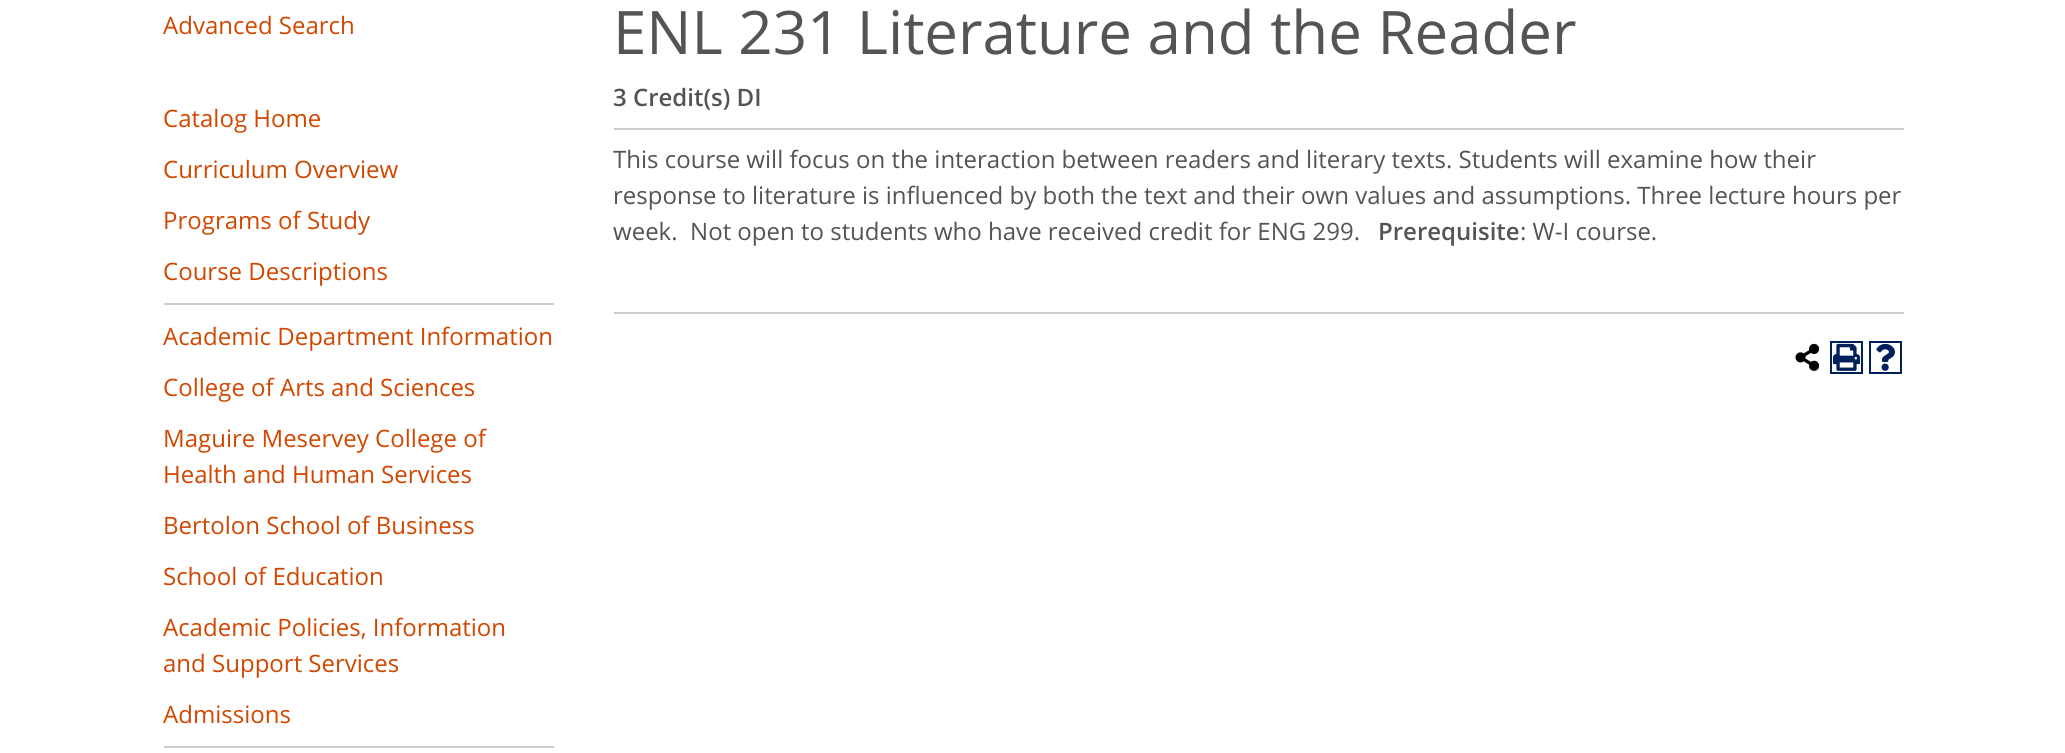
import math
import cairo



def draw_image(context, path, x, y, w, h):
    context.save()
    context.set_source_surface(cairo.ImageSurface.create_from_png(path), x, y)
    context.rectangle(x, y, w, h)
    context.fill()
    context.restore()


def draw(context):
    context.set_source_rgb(1, 1, 1)
    context.paint()
    context.set_source_rgb(204 / 255, 204 / 255, 204 / 255)
    context.rectangle(164, 303, 390, 2)
    context.fill()
    context.rectangle(164, 746, 390, 2)
    context.fill()
    context.rectangle(614, 128, 1290, 2)
    context.fill()
    context.rectangle(614, 312, 1290, 2)
    context.fill()
    draw_image(context, "images/1.png", 1795, 343, 25, 28)
    context.rectangle(1831, 342, 31, 31)
    context.set_source_rgb(0, 32 / 255, 91 / 255)
    context.stroke()
    draw_image(context, "images/2.png", 1833, 343, 27, 28)
    context.rectangle(1870, 342, 31, 31)
    context.stroke()
    draw_image(context, "images/3.png", 1876, 343, 19, 28)
    context.select_font_face("Open Sans")
    context.set_font_size(24)
    context.set_source_rgb(210 / 255, 71 / 255, 0)
    context.move_to(163, 34)
    context.show_text("Advanced Search")
    context.move_to(163, 127)
    context.show_text("Catalog Home")
    context.move_to(163, 178)
    context.show_text("Curriculum Overview")
    context.move_to(163, 229)
    context.show_text("Programs of Study")
    context.move_to(163, 280)
    context.show_text("Course Descriptions")
    context.move_to(163, 345)
    context.show_text("Academic Department Information")
    context.move_to(163, 396)
    context.show_text("College of Arts and Sciences")
    context.move_to(163, 447)
    context.show_text("Maguire Meservey College of")
    context.move_to(163, 483)
    context.show_text("Health and Human Services")
    context.move_to(163, 534)
    context.show_text("Bertolon School of Business")
    context.move_to(163, 585)
    context.show_text("School of Education")
    context.move_to(163, 636)
    context.show_text("Academic Policies, Information")
    context.move_to(163, 672)
    context.show_text("and Support Services")
    context.move_to(163, 723)
    context.show_text("Admissions")
    context.set_font_size(60)
    context.set_source_rgb(84 / 255, 84 / 255, 84 / 255)
    context.move_to(613, 54)
    context.show_text("ENL 231 Literature and the Reader")
    context.select_font_face("Open Sans SemiBold")
    context.set_font_size(24)
    context.move_to(613, 106)
    context.show_text("3 Credit(s) DI")
    context.select_font_face("Open Sans")
    context.move_to(613, 168)
    context.show_text("This course will focus on the interaction between readers and literary texts. Students will examine how their")
    context.move_to(613, 204)
    context.show_text("response to literature is influenced by both the text and their own values and assumptions. Three lecture hours per")
    context.move_to(613, 240)
    context.show_text("week.  Not open to students who have received credit for ENG 299.")
    context.select_font_face("Open Sans SemiBold")
    context.move_to(1378, 240)
    context.show_text("Prerequisite")
    context.select_font_face("Open Sans")
    context.move_to(1520, 240)
    context.show_text(": W-I course.")


surface = cairo.ImageSurface(cairo.Format.RGB24, 2065, 753)
context = cairo.Context(surface)
options = cairo.FontOptions()
options.set_hint_metrics(cairo.HintMetrics.OFF)
options.set_hint_style(cairo.HintStyle.NONE)
context.set_font_options(options)
context.set_miter_limit(4)
draw(context)
surface.write_to_png("out.png")
